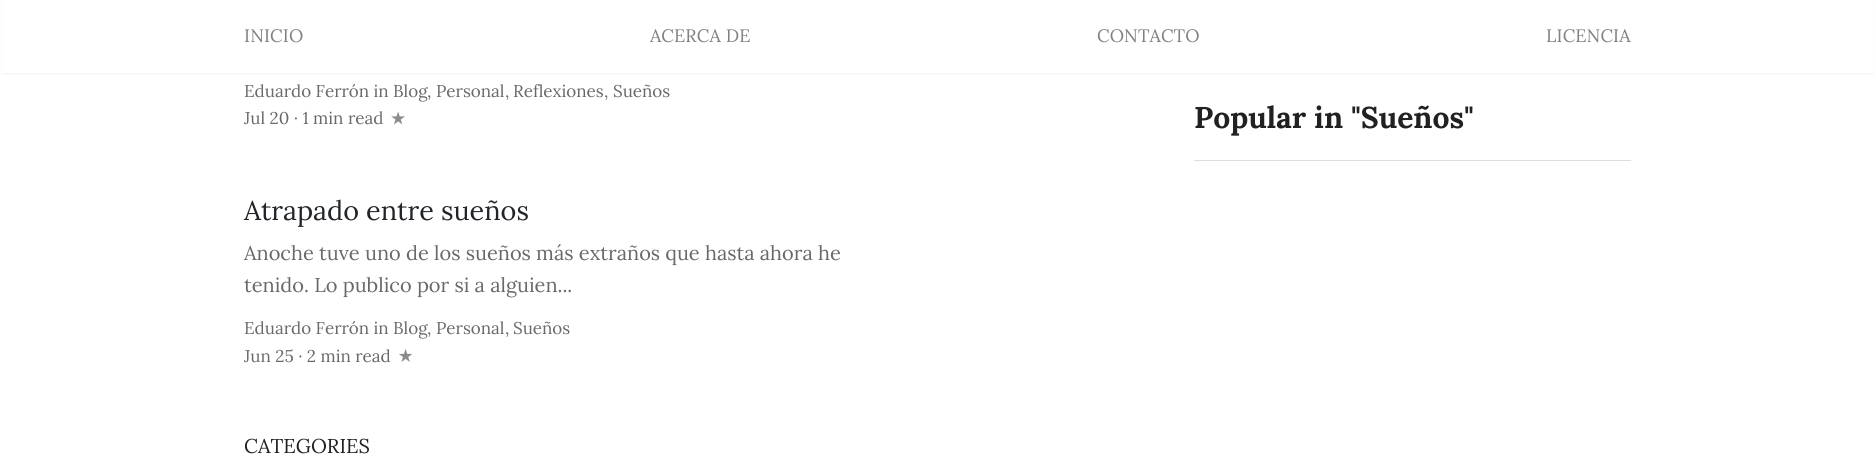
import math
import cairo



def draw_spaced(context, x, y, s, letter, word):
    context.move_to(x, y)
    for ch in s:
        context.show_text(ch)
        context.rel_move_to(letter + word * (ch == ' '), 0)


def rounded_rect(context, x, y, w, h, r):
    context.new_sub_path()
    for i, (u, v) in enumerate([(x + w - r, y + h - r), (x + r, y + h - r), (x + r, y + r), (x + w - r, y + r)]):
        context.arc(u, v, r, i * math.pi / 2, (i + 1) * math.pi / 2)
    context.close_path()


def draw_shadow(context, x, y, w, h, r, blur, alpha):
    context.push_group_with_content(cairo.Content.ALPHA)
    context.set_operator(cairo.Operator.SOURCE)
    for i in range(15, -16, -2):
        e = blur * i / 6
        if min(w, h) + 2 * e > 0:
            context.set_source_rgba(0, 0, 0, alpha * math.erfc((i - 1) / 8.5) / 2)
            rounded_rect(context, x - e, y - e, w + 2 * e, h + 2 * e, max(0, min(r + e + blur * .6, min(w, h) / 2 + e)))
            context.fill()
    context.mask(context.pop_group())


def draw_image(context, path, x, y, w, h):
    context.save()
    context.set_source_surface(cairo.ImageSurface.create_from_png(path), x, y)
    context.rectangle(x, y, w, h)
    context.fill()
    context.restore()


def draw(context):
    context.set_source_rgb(1, 1, 1)
    context.paint()
    context.set_source_rgb(0, 0, 0)
    draw_shadow(context, 3, -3, 1870, 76, 0, 1, 0.13)
    context.set_source_rgb(1, 1, 1)
    context.rectangle(2, 0, 1872, 73)
    context.fill()
    draw_image(context, "images/1.png", 391, 111, 14, 14)
    draw_image(context, "images/2.png", 399, 349, 14, 13)
    context.set_source_rgb(222 / 255, 222 / 255, 222 / 255)
    context.rectangle(1194, 160, 437, 1)
    context.fill()
    context.select_font_face("Lora")
    context.set_font_size(18)
    context.set_source_rgb(128 / 255, 128 / 255, 128 / 255)
    draw_spaced(context, 244, 42, "INICIO", 0.1, 0)
    draw_spaced(context, 650, 42, "ACERCA DE", 0.1, 0)
    draw_spaced(context, 1097, 42, "CONTACTO", 0.1, 0)
    draw_spaced(context, 1546, 42, "LICENCIA", 0.1, 0)
    context.set_font_size(17)
    context.set_source_rgb(105 / 255, 105 / 255, 105 / 255)
    context.move_to(244, 97)
    context.show_text("Eduardo Ferrón in")
    context.move_to(393, 97)
    context.show_text("Blog")
    context.move_to(427, 97)
    context.show_text(",")
    context.move_to(436, 97)
    context.show_text("Personal")
    context.move_to(505, 97)
    context.show_text(",")
    context.move_to(513, 97)
    context.show_text("Reflexiones")
    context.move_to(604, 97)
    context.show_text(",")
    context.move_to(613, 97)
    context.show_text("Sueños")
    context.move_to(244, 124)
    context.show_text("Jul 20 · 1 min read")
    context.set_font_size(27)
    context.set_source_rgb(33 / 255, 37 / 255, 41 / 255)
    context.move_to(244, 220)
    context.show_text("Atrapado entre sueños")
    context.set_font_size(20)
    context.set_source_rgb(105 / 255, 105 / 255, 105 / 255)
    context.move_to(244, 260)
    context.show_text("Anoche tuve uno de los sueños más extraños que hasta ahora he")
    context.move_to(244, 292)
    context.show_text("tenido. Lo publico por si a alguien...")
    context.set_font_size(17)
    context.move_to(244, 334)
    context.show_text("Eduardo Ferrón in")
    context.move_to(393, 334)
    context.show_text("Blog")
    context.move_to(427, 334)
    context.show_text(",")
    context.move_to(436, 334)
    context.show_text("Personal")
    context.move_to(505, 334)
    context.show_text(",")
    context.move_to(513, 334)
    context.show_text("Sueños")
    context.move_to(244, 362)
    context.show_text("Jun 25 · 2 min read")
    context.set_font_size(20)
    context.set_source_rgb(33 / 255, 33 / 255, 33 / 255)
    context.move_to(244, 453)
    context.show_text("CATEGORIES")
    context.select_font_face("Lora", cairo.FontSlant.NORMAL, cairo.FontWeight.BOLD)
    context.set_font_size(30)
    context.move_to(1194, 128)
    context.show_text("Popular in \"Sueños\"")


surface = cairo.ImageSurface(cairo.Format.RGB24, 1875, 457)
context = cairo.Context(surface)
options = cairo.FontOptions()
options.set_hint_metrics(cairo.HintMetrics.OFF)
options.set_hint_style(cairo.HintStyle.NONE)
context.set_font_options(options)
context.set_miter_limit(4)
draw(context)
surface.write_to_png("out.png")
